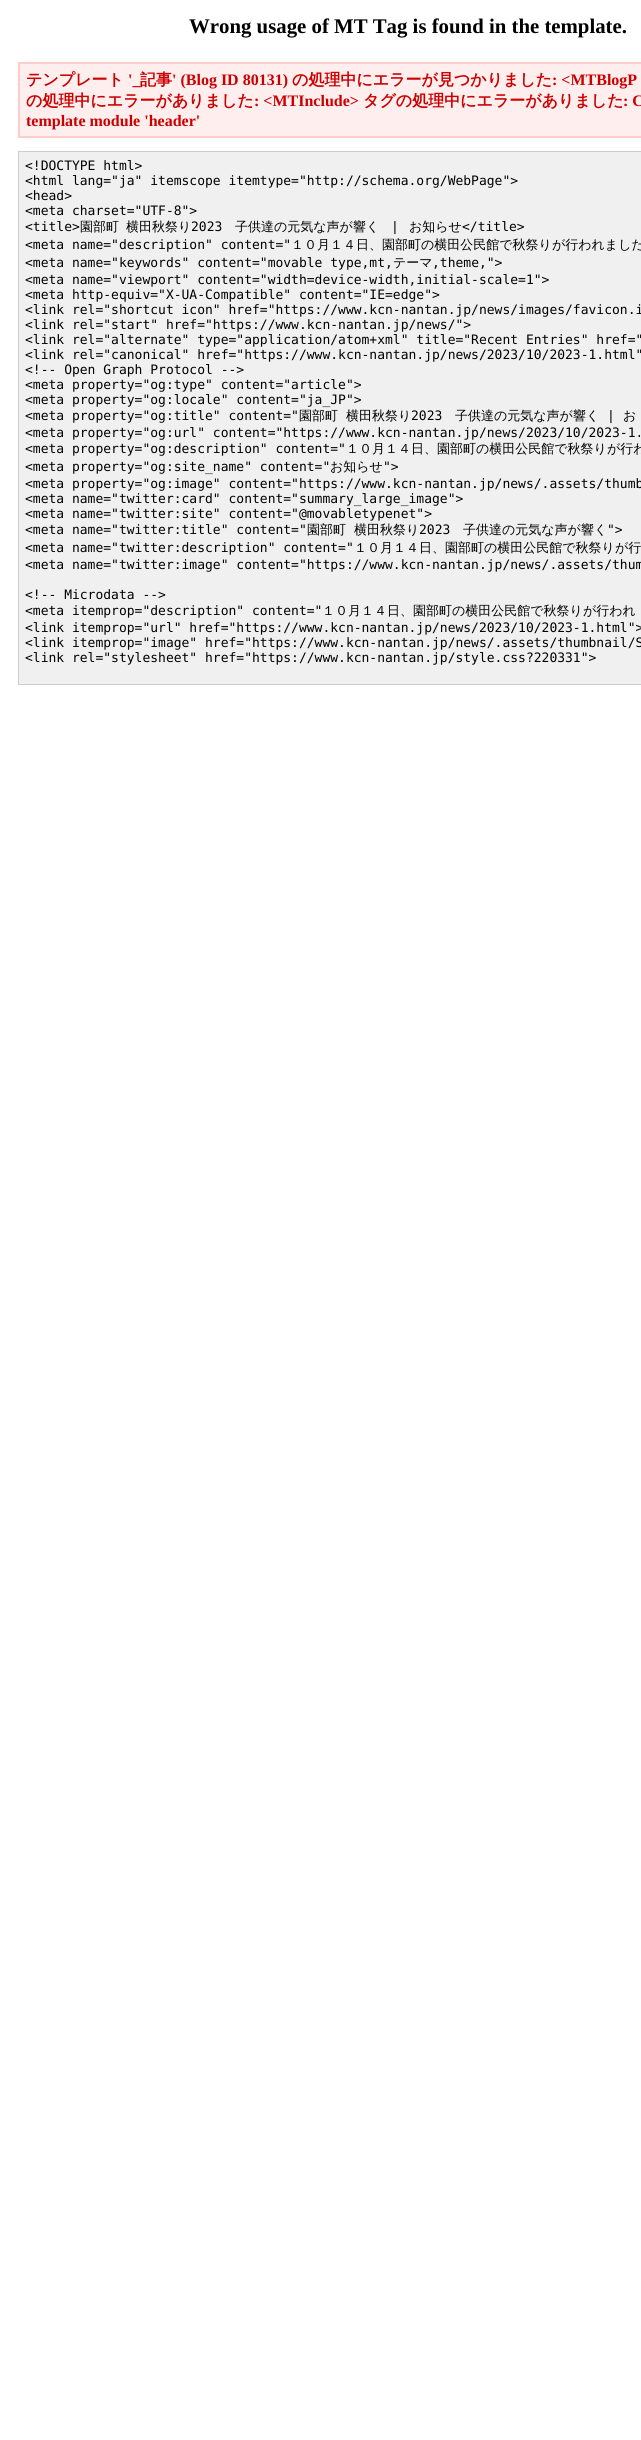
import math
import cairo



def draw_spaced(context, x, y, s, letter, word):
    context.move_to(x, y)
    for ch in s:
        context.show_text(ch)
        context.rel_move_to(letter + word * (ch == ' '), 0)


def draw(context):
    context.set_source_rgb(1, 1, 1)
    context.paint()
    context.set_source_rgb(1, 238 / 255, 238 / 255)
    context.rectangle(19, 63, 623, 74)
    context.fill_preserve()
    context.set_source_rgb(1, 204 / 255, 204 / 255)
    context.stroke()
    context.set_source_rgb(240 / 255, 240 / 255, 240 / 255)
    context.rectangle(18.5, 151.5, 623, 533)
    context.fill_preserve()
    context.set_source_rgb(204 / 255, 204 / 255, 204 / 255)
    context.set_line_width(1)
    context.stroke()
    context.select_font_face("Liberation Serif", cairo.FontSlant.NORMAL, cairo.FontWeight.BOLD)
    context.set_font_size(20.8)
    context.set_source_rgb(0, 0, 0)
    context.move_to(189, 33)
    context.show_text("Wrong usage of MT Tag is found in the template.")
    context.select_font_face("WenQuanYi Zen Hei", cairo.FontSlant.NORMAL, cairo.FontWeight.BOLD)
    context.set_font_size(16)
    context.set_source_rgb(204 / 255, 0, 0)
    context.move_to(26, 85)
    context.show_text("テンプレート")
    context.select_font_face("Liberation Serif", cairo.FontSlant.NORMAL, cairo.FontWeight.BOLD)
    context.move_to(128, 85)
    context.show_text("'_")
    context.select_font_face("WenQuanYi Zen Hei", cairo.FontSlant.NORMAL, cairo.FontWeight.BOLD)
    context.move_to(140, 85)
    context.show_text("記事")
    context.select_font_face("Liberation Serif", cairo.FontSlant.NORMAL, cairo.FontWeight.BOLD)
    context.move_to(172, 85)
    context.show_text("' (Blog ID 80131)")
    context.select_font_face("WenQuanYi Zen Hei", cairo.FontSlant.NORMAL, cairo.FontWeight.BOLD)
    context.move_to(292, 85)
    context.show_text("の処理中にエラーが見つかりました")
    context.select_font_face("Liberation Serif", cairo.FontSlant.NORMAL, cairo.FontWeight.BOLD)
    context.move_to(552, 85)
    context.show_text(": <MTBlogP")
    context.select_font_face("WenQuanYi Zen Hei", cairo.FontSlant.NORMAL, cairo.FontWeight.BOLD)
    context.move_to(26, 106)
    context.show_text("の処理中にエラーがありました")
    context.select_font_face("Liberation Serif", cairo.FontSlant.NORMAL, cairo.FontWeight.BOLD)
    context.move_to(254, 106)
    context.show_text(": <MTInclude>")
    context.select_font_face("WenQuanYi Zen Hei", cairo.FontSlant.NORMAL, cairo.FontWeight.BOLD)
    context.move_to(363, 106)
    context.show_text("タグの処理中にエラーがありました")
    context.select_font_face("Liberation Serif", cairo.FontSlant.NORMAL, cairo.FontWeight.BOLD)
    context.move_to(623, 106)
    context.show_text(": C")
    context.move_to(26, 126)
    context.show_text("template module 'header'")
    context.select_font_face("DejaVu Sans Mono")
    context.set_font_size(13)
    context.set_source_rgb(0, 0, 0)
    context.move_to(25, 170)
    context.show_text("<!DOCTYPE html>")
    context.move_to(25, 185)
    context.show_text("<html lang=\"ja\" itemscope itemtype=\"http://schema.org/WebPage\">")
    context.move_to(25, 200)
    context.show_text("<head>")
    context.move_to(25, 215)
    context.show_text("<meta charset=\"UTF-8\">")
    context.move_to(25, 231)
    context.show_text("<title>")
    context.select_font_face("WenQuanYi Zen Hei Medium")
    draw_spaced(context, 80, 231, "園部町 横田秋祭り", 0, 3)
    context.select_font_face("DejaVu Sans Mono")
    context.move_to(191, 231)
    context.show_text("2023")
    context.select_font_face("WenQuanYi Zen Hei Medium")
    context.move_to(235, 231)
    context.show_text("子供達の元気な声が響く")
    context.select_font_face("DejaVu Sans Mono")
    context.move_to(391, 231)
    context.show_text("|")
    context.select_font_face("WenQuanYi Zen Hei Medium")
    context.move_to(409, 231)
    context.show_text("お知らせ")
    context.select_font_face("DejaVu Sans Mono")
    context.move_to(462, 231)
    context.show_text("</title>")
    context.move_to(25, 249)
    context.show_text("<meta name=\"description\" content=\"")
    context.select_font_face("WenQuanYi Zen Hei Medium")
    context.move_to(291, 249)
    context.show_text("１０月１４日、園部町の横田公民館で秋祭りが行われました")
    context.select_font_face("DejaVu Sans Mono")
    context.move_to(25, 267)
    context.show_text("<meta name=\"keywords\" content=\"movable type,mt,")
    context.select_font_face("WenQuanYi Zen Hei Medium")
    context.move_to(393, 267)
    context.show_text("テーマ")
    context.select_font_face("DejaVu Sans Mono")
    context.move_to(432, 267)
    context.show_text(",theme,\">")
    context.move_to(25, 284)
    context.show_text("<meta name=\"viewport\" content=\"width=device-width,initial-scale=1\">")
    context.move_to(25, 299)
    context.show_text("<meta http-equiv=\"X-UA-Compatible\" content=\"IE=edge\">")
    context.move_to(25, 314)
    context.show_text("<link rel=\"shortcut icon\" href=\"https://www.kcn-nantan.jp/news/images/favicon.i")
    context.move_to(25, 329)
    context.show_text("<link rel=\"start\" href=\"https://www.kcn-nantan.jp/news/\">")
    context.move_to(25, 344)
    context.show_text("<link rel=\"alternate\" type=\"application/atom+xml\" title=\"Recent Entries\" href=\"")
    context.move_to(25, 359)
    context.show_text("<link rel=\"canonical\" href=\"https://www.kcn-nantan.jp/news/2023/10/2023-1.html\"")
    context.move_to(25, 374)
    context.show_text("<!-- Open Graph Protocol -->")
    context.move_to(25, 389)
    context.show_text("<meta property=\"og:type\" content=\"article\">")
    context.move_to(25, 404)
    context.show_text("<meta property=\"og:locale\" content=\"ja_JP\">")
    context.move_to(25, 420)
    context.show_text("<meta property=\"og:title\" content=\"")
    context.select_font_face("WenQuanYi Zen Hei Medium")
    context.move_to(299, 420)
    context.show_text("園部町")
    context.move_to(346, 420)
    context.show_text("横田秋祭り")
    context.select_font_face("DejaVu Sans Mono")
    context.move_to(411, 420)
    context.show_text("2023")
    context.select_font_face("WenQuanYi Zen Hei Medium")
    context.move_to(455, 420)
    context.show_text("子供達の元気な声が響く")
    context.select_font_face("DejaVu Sans Mono")
    context.move_to(607, 420)
    context.show_text("|")
    context.select_font_face("WenQuanYi Zen Hei Medium")
    context.move_to(623, 420)
    context.show_text("お")
    context.select_font_face("DejaVu Sans Mono")
    context.move_to(25, 437)
    context.show_text("<meta property=\"og:url\" content=\"https://www.kcn-nantan.jp/news/2023/10/2023-1.")
    context.move_to(25, 453)
    context.show_text("<meta property=\"og:description\" content=\"")
    context.select_font_face("WenQuanYi Zen Hei Medium")
    context.move_to(346, 453)
    context.show_text("１０月１４日、園部町の横田公民館で秋祭りが行わ")
    context.select_font_face("DejaVu Sans Mono")
    context.move_to(25, 471)
    context.show_text("<meta property=\"og:site_name\" content=\"")
    context.select_font_face("WenQuanYi Zen Hei Medium")
    context.move_to(330, 471)
    context.show_text("お知らせ")
    context.select_font_face("DejaVu Sans Mono")
    context.move_to(383, 471)
    context.show_text("\">")
    context.move_to(25, 488)
    context.show_text("<meta property=\"og:image\" content=\"https://www.kcn-nantan.jp/news/.assets/thumb")
    context.move_to(25, 503)
    context.show_text("<meta name=\"twitter:card\" content=\"summary_large_image\">")
    context.move_to(25, 518)
    context.show_text("<meta name=\"twitter:site\" content=\"@movabletypenet\">")
    context.move_to(25, 534)
    context.show_text("<meta name=\"twitter:title\" content=\"")
    context.select_font_face("WenQuanYi Zen Hei Medium")
    context.move_to(307, 534)
    context.show_text("園部町")
    context.move_to(354, 534)
    context.show_text("横田秋祭り")
    context.select_font_face("DejaVu Sans Mono")
    context.move_to(419, 534)
    context.show_text("2023")
    context.select_font_face("WenQuanYi Zen Hei Medium")
    context.move_to(463, 534)
    context.show_text("子供達の元気な声が響く")
    context.select_font_face("DejaVu Sans Mono")
    context.move_to(607, 534)
    context.show_text("\">")
    context.move_to(25, 552)
    context.show_text("<meta name=\"twitter:description\" content=\"")
    context.select_font_face("WenQuanYi Zen Hei Medium")
    context.move_to(354, 552)
    context.show_text("１０月１４日、園部町の横田公民館で秋祭りが行")
    context.select_font_face("DejaVu Sans Mono")
    context.move_to(25, 569)
    context.show_text("<meta name=\"twitter:image\" content=\"https://www.kcn-nantan.jp/news/.assets/thum")
    context.move_to(25, 599)
    context.show_text("<!-- Microdata -->")
    context.move_to(25, 615)
    context.show_text("<meta itemprop=\"description\" content=\"")
    context.select_font_face("WenQuanYi Zen Hei Medium")
    context.move_to(322, 615)
    context.show_text("１０月１４日、園部町の横田公民館で秋祭りが行われ")
    context.select_font_face("DejaVu Sans Mono")
    context.move_to(25, 632)
    context.show_text("<link itemprop=\"url\" href=\"https://www.kcn-nantan.jp/news/2023/10/2023-1.html\">")
    context.move_to(25, 647)
    context.show_text("<link itemprop=\"image\" href=\"https://www.kcn-nantan.jp/news/.assets/thumbnail/S")
    context.move_to(25, 662)
    context.show_text("<link rel=\"stylesheet\" href=\"https://www.kcn-nantan.jp/style.css?220331\">")


surface = cairo.ImageSurface(cairo.Format.RGB24, 641, 2440)
context = cairo.Context(surface)
options = cairo.FontOptions()
options.set_hint_metrics(cairo.HintMetrics.OFF)
options.set_hint_style(cairo.HintStyle.NONE)
context.set_font_options(options)
context.set_miter_limit(4)
draw(context)
surface.write_to_png("out.png")
